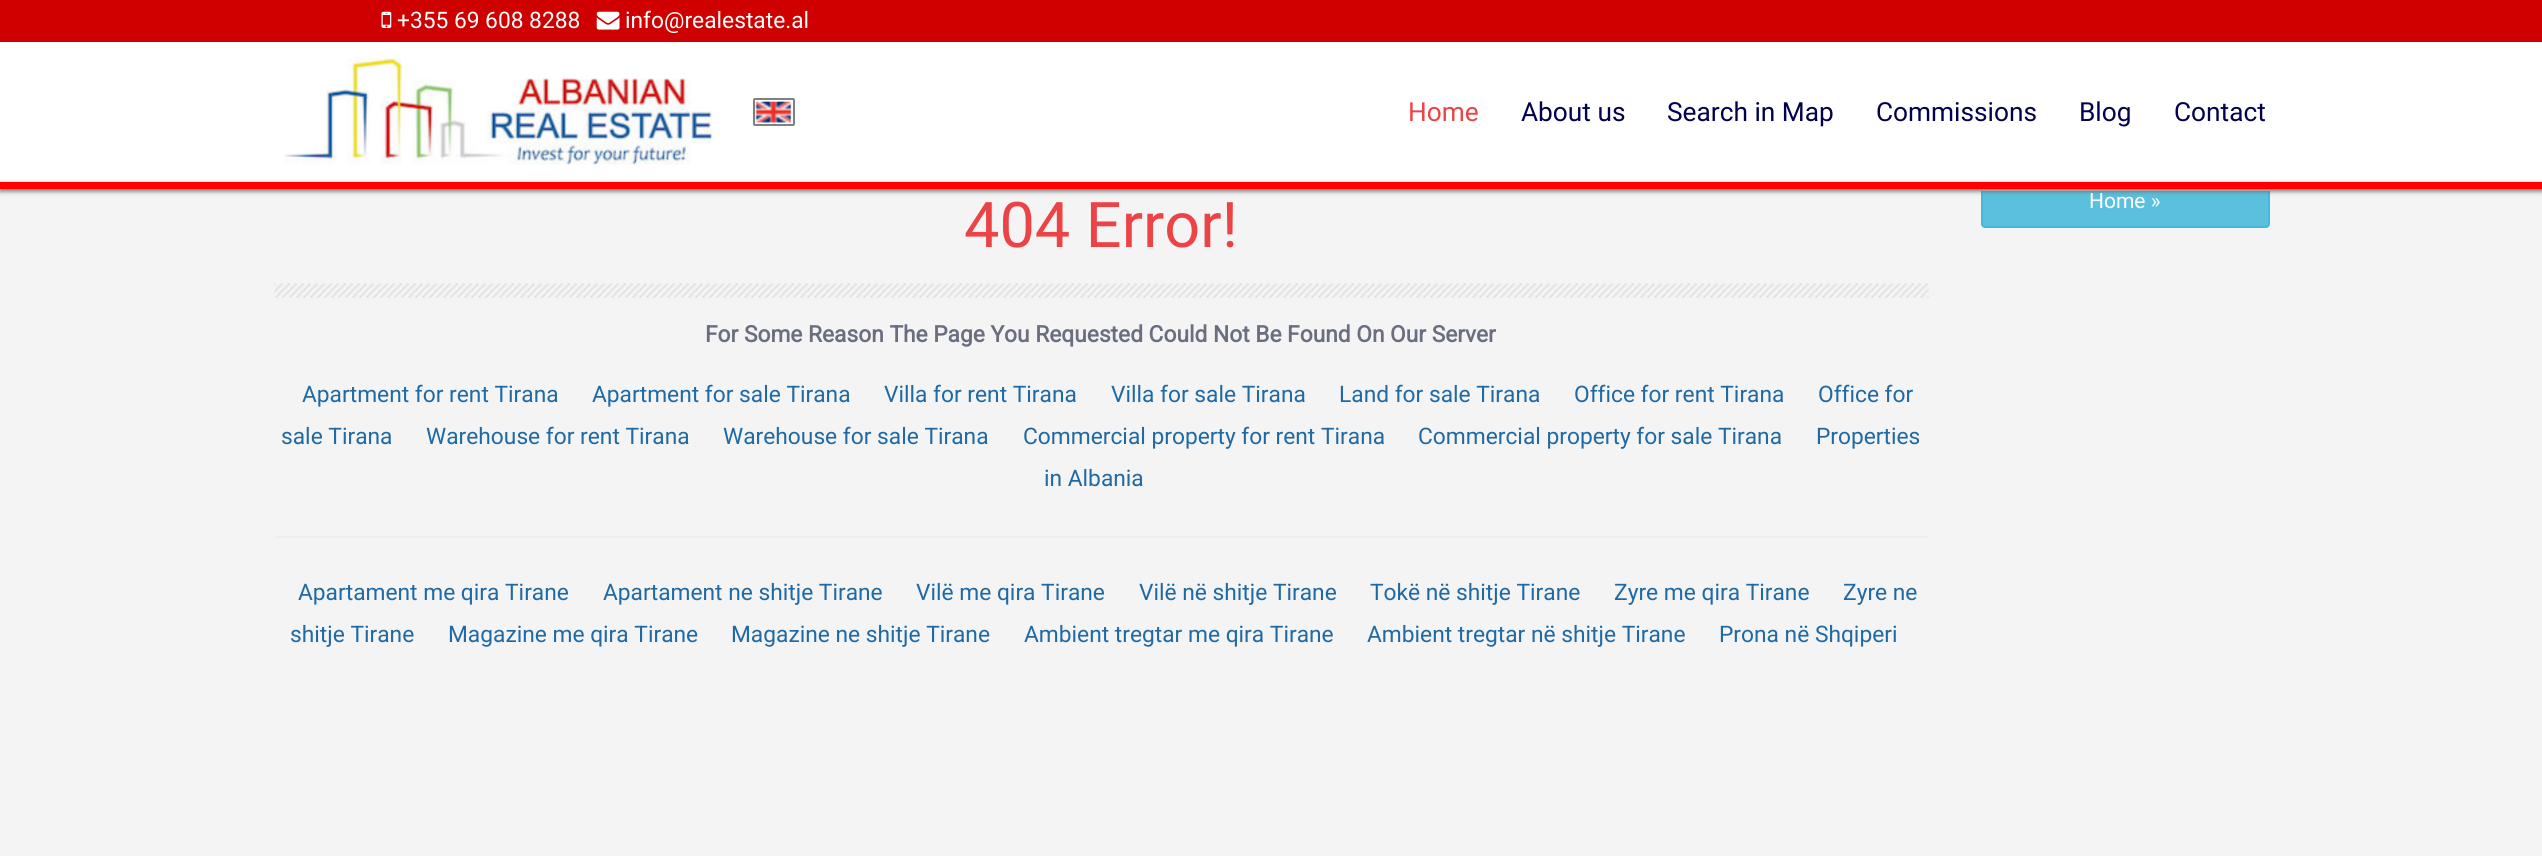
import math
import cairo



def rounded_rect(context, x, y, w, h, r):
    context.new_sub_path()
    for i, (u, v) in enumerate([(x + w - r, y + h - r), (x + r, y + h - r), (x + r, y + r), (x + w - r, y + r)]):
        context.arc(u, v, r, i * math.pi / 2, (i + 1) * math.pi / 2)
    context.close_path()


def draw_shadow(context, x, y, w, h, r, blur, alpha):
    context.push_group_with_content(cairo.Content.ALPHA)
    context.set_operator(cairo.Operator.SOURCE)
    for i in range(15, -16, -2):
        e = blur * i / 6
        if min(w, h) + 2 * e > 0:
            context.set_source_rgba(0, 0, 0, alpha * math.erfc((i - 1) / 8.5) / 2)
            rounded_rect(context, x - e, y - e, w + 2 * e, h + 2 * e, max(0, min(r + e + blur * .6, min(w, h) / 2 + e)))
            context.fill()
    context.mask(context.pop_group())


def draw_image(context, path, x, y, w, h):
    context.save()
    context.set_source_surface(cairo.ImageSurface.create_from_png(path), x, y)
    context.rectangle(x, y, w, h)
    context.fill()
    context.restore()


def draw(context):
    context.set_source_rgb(244 / 255, 244 / 255, 244 / 255)
    context.paint()
    context.set_source_rgb(91 / 255, 192 / 255, 222 / 255)
    rounded_rect(context, 1982, 176, 287, 51, 3)
    context.fill_preserve()
    context.set_source_rgb(70 / 255, 184 / 255, 218 / 255)
    context.stroke()
    context.set_source_rgb(1, 1, 1)
    context.rectangle(0, 42, 2542, 140)
    context.fill()
    context.rectangle(0, 189, 2542, 2)
    context.fill()
    context.set_source_rgb(206 / 255, 0, 0)
    context.rectangle(0, 0, 2542, 42)
    context.fill()
    draw_image(context, "images/1.png", 381, 11, 11, 17)
    draw_image(context, "images/2.png", 596, 11, 24, 19)
    draw_image(context, "images/3.png", 284, 58, 429, 107)
    rounded_rect(context, 754, 99, 40, 26, 1)
    context.set_source_rgb(128 / 255, 128 / 255, 128 / 255)
    context.stroke()
    draw_image(context, "images/4.png", 755, 101, 37, 22)
    context.set_source_rgb(99 / 255, 99 / 255, 99 / 255)
    draw_shadow(context, 0, 184, 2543, 7, 0, 2.5, 1)
    context.set_source_rgb(1, 0, 0)
    context.rectangle(0, 182, 2542, 7)
    context.fill()
    draw_image(context, "images/5.png", 274, 283, 1655, 15)
    context.set_source_rgb(238 / 255, 238 / 255, 238 / 255)
    context.rectangle(275, 536, 1654, 2)
    context.fill()
    context.select_font_face("Roboto")
    context.set_font_size(22.75)
    context.set_source_rgb(1, 1, 1)
    context.move_to(397, 28)
    context.show_text("+355 69 608 8288")
    context.move_to(625, 28)
    context.show_text("info@realestate.al")
    context.set_font_size(26.25)
    context.set_source_rgb(236 / 255, 68 / 255, 70 / 255)
    context.move_to(1408, 121)
    context.show_text("Home")
    context.set_source_rgb(2 / 255, 1 / 255, 80 / 255)
    context.move_to(1521, 121)
    context.show_text("About us")
    context.move_to(1667, 121)
    context.show_text("Search in Map")
    context.move_to(1876, 121)
    context.show_text("Commissions")
    context.move_to(2079, 121)
    context.show_text("Blog")
    context.move_to(2174, 121)
    context.show_text("Contact")
    context.set_font_size(63)
    context.set_source_rgb(236 / 255, 68 / 255, 70 / 255)
    context.move_to(964, 247)
    context.show_text("404 Error!")
    context.select_font_face("Roboto", cairo.FontSlant.NORMAL, cairo.FontWeight.BOLD)
    context.set_font_size(22.75)
    context.set_source_rgb(107 / 255, 110 / 255, 128 / 255)
    context.move_to(705, 342)
    context.show_text("For Some Reason The Page You Requested Could Not Be Found On Our Server")
    context.select_font_face("Roboto")
    context.set_source_rgb(31 / 255, 105 / 255, 164 / 255)
    context.move_to(302, 402)
    context.show_text("Apartment for rent Tirana")
    context.move_to(592, 402)
    context.show_text("Apartment for sale Tirana")
    context.move_to(884, 402)
    context.show_text("Villa for rent Tirana")
    context.move_to(1111, 402)
    context.show_text("Villa for sale Tirana")
    context.move_to(1339, 402)
    context.show_text("Land for sale Tirana")
    context.move_to(1574, 402)
    context.show_text("Office for rent Tirana")
    context.move_to(1818, 402)
    context.show_text("Office for")
    context.move_to(281, 444)
    context.show_text("sale Tirana")
    context.move_to(426, 444)
    context.show_text("Warehouse for rent Tirana")
    context.move_to(723, 444)
    context.show_text("Warehouse for sale Tirana")
    context.move_to(1023, 444)
    context.show_text("Commercial property for rent Tirana")
    context.move_to(1418, 444)
    context.show_text("Commercial property for sale Tirana")
    context.move_to(1816, 444)
    context.show_text("Properties")
    context.move_to(1044, 486)
    context.show_text("in Albania")
    context.move_to(298, 600)
    context.show_text("Apartament me qira Tirane")
    context.move_to(603, 600)
    context.show_text("Apartament ne shitje Tirane")
    context.move_to(916, 600)
    context.show_text("Vilë me qira Tirane")
    context.move_to(1139, 600)
    context.show_text("Vilë në shitje Tirane")
    context.move_to(1370, 600)
    context.show_text("Tokë në shitje Tirane")
    context.move_to(1614, 600)
    context.show_text("Zyre me qira Tirane")
    context.move_to(1843, 600)
    context.show_text("Zyre ne")
    context.move_to(290, 642)
    context.show_text("shitje Tirane")
    context.move_to(448, 642)
    context.show_text("Magazine me qira Tirane")
    context.move_to(731, 642)
    context.show_text("Magazine ne shitje Tirane")
    context.move_to(1024, 642)
    context.show_text("Ambient tregtar me qira Tirane")
    context.move_to(1367, 642)
    context.show_text("Ambient tregtar në shitje Tirane")
    context.move_to(1719, 642)
    context.show_text("Prona në Shqiperi")
    context.set_font_size(21)
    context.set_source_rgb(1, 1, 1)
    context.move_to(2089, 208)
    context.show_text("Home »")


surface = cairo.ImageSurface(cairo.Format.RGB24, 2542, 856)
context = cairo.Context(surface)
options = cairo.FontOptions()
options.set_hint_metrics(cairo.HintMetrics.OFF)
options.set_hint_style(cairo.HintStyle.NONE)
context.set_font_options(options)
context.set_miter_limit(4)
draw(context)
surface.write_to_png("out.png")
